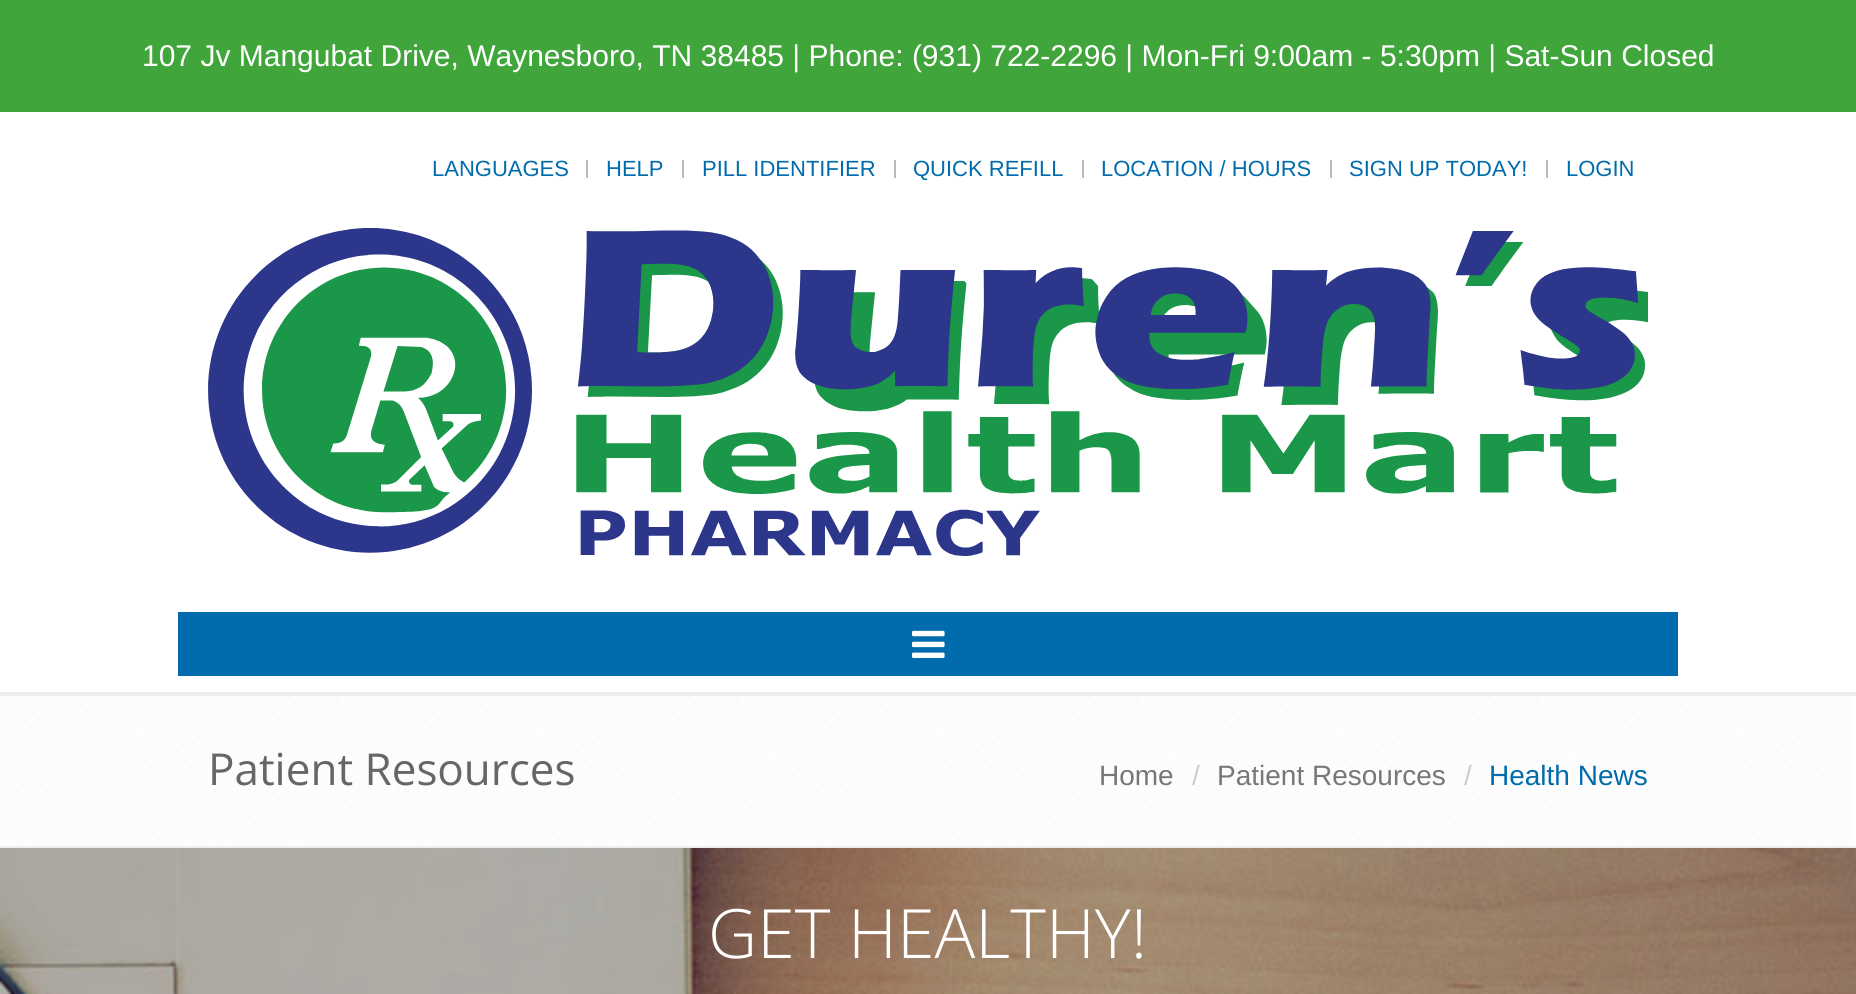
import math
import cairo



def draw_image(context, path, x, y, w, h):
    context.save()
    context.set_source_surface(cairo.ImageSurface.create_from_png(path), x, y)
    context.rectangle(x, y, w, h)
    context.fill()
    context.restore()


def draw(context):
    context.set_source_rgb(1, 1, 1)
    context.paint()
    context.set_source_rgb(64 / 255, 165 / 255, 58 / 255)
    context.rectangle(0, 0, 1856, 112)
    context.fill()
    context.set_source_rgb(238 / 255, 238 / 255, 238 / 255)
    context.rectangle(0, 692, 1856, 4)
    context.fill()
    context.set_source_rgb(187 / 255, 187 / 255, 187 / 255)
    context.rectangle(586, 160, 2, 18)
    context.fill()
    context.rectangle(682, 160, 2, 18)
    context.fill()
    context.rectangle(894, 160, 2, 18)
    context.fill()
    context.rectangle(1082, 160, 2, 18)
    context.fill()
    context.rectangle(1330, 160, 2, 18)
    context.fill()
    context.rectangle(1546, 160, 2, 18)
    context.fill()
    draw_image(context, "images/1.png", 208, 228, 1440, 328)
    context.set_source_rgb(0, 107 / 255, 173 / 255)
    context.rectangle(178, 612, 1500, 64)
    context.fill()
    draw_image(context, "images/2.png", 912, 630, 33, 28)
    draw_image(context, "images/3.png", 0, 696, 1851, 150)
    context.set_source_rgb(238 / 255, 238 / 255, 238 / 255)
    context.rectangle(0, 846, 1856, 2)
    context.fill()
    draw_image(context, "images/4.png", 0, 848, 1856, 146)
    context.select_font_face("Liberation Sans")
    context.set_font_size(30)
    context.set_source_rgb(1, 1, 1)
    context.move_to(142, 66)
    context.show_text("107 Jv Mangubat Drive, Waynesboro, TN 38485 | Phone: (931) 722-2296 | Mon-Fri 9:00am - 5:30pm | Sat-Sun Closed")
    context.set_font_size(22)
    context.set_source_rgb(0, 107 / 255, 173 / 255)
    context.move_to(432, 176)
    context.show_text("LANGUAGES")
    context.move_to(606, 176)
    context.show_text("HELP")
    context.move_to(702, 176)
    context.show_text("PILL IDENTIFIER")
    context.move_to(913, 176)
    context.show_text("QUICK REFILL")
    context.move_to(1101, 176)
    context.show_text("LOCATION / HOURS")
    context.move_to(1349, 176)
    context.show_text("SIGN UP TODAY!")
    context.move_to(1566, 176)
    context.show_text("LOGIN")
    context.select_font_face("Open Sans")
    context.set_font_size(44)
    context.set_source_rgb(102 / 255, 102 / 255, 102 / 255)
    context.move_to(208, 785)
    context.show_text("Patient Resources")
    context.select_font_face("Liberation Sans")
    context.set_font_size(28)
    context.set_source_rgb(119 / 255, 119 / 255, 119 / 255)
    context.move_to(1099, 785)
    context.show_text("Home")
    context.set_source_rgb(204 / 255, 204 / 255, 204 / 255)
    context.move_to(1192, 785)
    context.show_text("/")
    context.set_source_rgb(119 / 255, 119 / 255, 119 / 255)
    context.move_to(1217, 785)
    context.show_text("Patient Resources")
    context.set_source_rgb(204 / 255, 204 / 255, 204 / 255)
    context.move_to(1464, 785)
    context.show_text("/")
    context.set_source_rgb(0, 107 / 255, 173 / 255)
    context.move_to(1489, 785)
    context.show_text("Health News")
    context.select_font_face("Open Sans Light")
    context.set_font_size(68)
    context.set_source_rgb(1, 1, 1)
    context.move_to(708, 958)
    context.show_text("GET HEALTHY!")


surface = cairo.ImageSurface(cairo.Format.RGB24, 1856, 994)
context = cairo.Context(surface)
options = cairo.FontOptions()
options.set_hint_metrics(cairo.HintMetrics.OFF)
options.set_hint_style(cairo.HintStyle.NONE)
context.set_font_options(options)
context.set_miter_limit(4)
draw(context)
surface.write_to_png("out.png")
